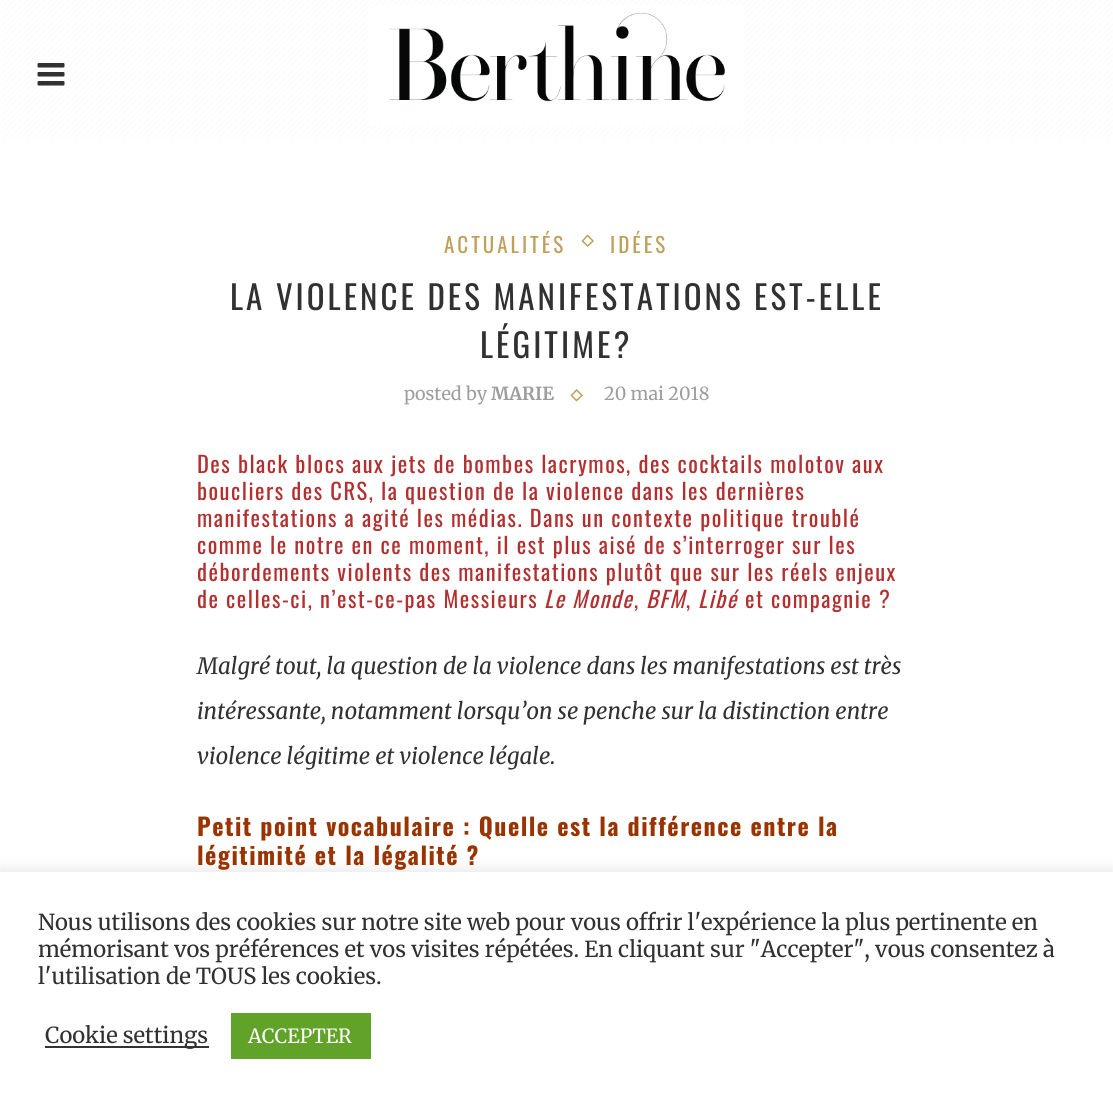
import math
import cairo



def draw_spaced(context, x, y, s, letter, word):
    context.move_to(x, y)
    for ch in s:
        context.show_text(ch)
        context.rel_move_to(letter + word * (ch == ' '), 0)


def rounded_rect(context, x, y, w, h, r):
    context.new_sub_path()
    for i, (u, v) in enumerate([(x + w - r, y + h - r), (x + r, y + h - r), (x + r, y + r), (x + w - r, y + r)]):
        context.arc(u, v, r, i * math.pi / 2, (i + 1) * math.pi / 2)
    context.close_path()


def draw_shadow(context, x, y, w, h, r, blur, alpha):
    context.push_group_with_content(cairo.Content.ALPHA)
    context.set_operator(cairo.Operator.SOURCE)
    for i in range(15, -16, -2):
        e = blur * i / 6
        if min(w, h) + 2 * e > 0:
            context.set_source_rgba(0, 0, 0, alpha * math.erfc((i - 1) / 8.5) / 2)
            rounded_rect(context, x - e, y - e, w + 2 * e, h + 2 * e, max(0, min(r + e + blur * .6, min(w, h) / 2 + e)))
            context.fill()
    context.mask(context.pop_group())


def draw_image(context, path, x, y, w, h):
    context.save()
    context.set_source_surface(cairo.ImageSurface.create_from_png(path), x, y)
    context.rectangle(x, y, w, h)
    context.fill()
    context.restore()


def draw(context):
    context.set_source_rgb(1, 1, 1)
    context.paint()
    draw_image(context, "images/1.png", 2, 0, 1111, 138)
    draw_image(context, "images/2.png", 369, 6, 375, 120)
    draw_image(context, "images/3.png", 37, 63, 28, 23)
    context.new_path()
    context.move_to(587.5, 235.5)
    context.line_to(593, 241)
    context.line_to(587.5, 246)
    context.line_to(582.5, 241)
    context.close_path()
    context.set_source_rgb(191 / 255, 159 / 255, 90 / 255)
    context.set_line_width(1.5)
    context.stroke()
    context.new_path()
    context.move_to(576.5, 390)
    context.line_to(582, 395.5)
    context.line_to(576.5, 400.5)
    context.line_to(571.5, 395.5)
    context.close_path()
    context.stroke()
    context.set_source_rgb(172 / 255, 171 / 255, 171 / 255)
    draw_shadow(context, 0, 870, 1113, 233, 0, 7.5, 0.3)
    context.set_source_rgb(1, 1, 1)
    context.rectangle(0, 872, 1113, 232)
    context.fill()
    context.set_source_rgb(51 / 255, 51 / 255, 51 / 255)
    context.rectangle(45, 1046, 164, 2)
    context.fill()
    context.set_source_rgb(97 / 255, 162 / 255, 41 / 255)
    context.rectangle(231, 1013, 140, 46)
    context.fill()
    context.select_font_face("Oswald")
    context.set_font_size(21)
    context.set_source_rgb(191 / 255, 159 / 255, 90 / 255)
    draw_spaced(context, 444, 253, "ACTUALITÉS", 3, 0)
    draw_spaced(context, 610, 253, "IDÉES", 3, 0)
    context.set_font_size(33)
    context.set_source_rgb(49 / 255, 49 / 255, 49 / 255)
    draw_spaced(context, 230, 310, "LA VIOLENCE DES MANIFESTATIONS EST-ELLE", 3, 0)
    draw_spaced(context, 480, 358, "LÉGITIME?", 3, 0)
    context.select_font_face("Merriweather")
    context.set_font_size(18)
    context.set_source_rgb(158 / 255, 158 / 255, 158 / 255)
    context.move_to(404, 400)
    context.show_text("posted by")
    context.select_font_face("Merriweather", cairo.FontSlant.NORMAL, cairo.FontWeight.BOLD)
    context.move_to(491, 400)
    context.show_text("MARIE")
    context.select_font_face("Merriweather")
    context.move_to(604, 400)
    context.show_text("20 mai 2018")
    context.select_font_face("Oswald")
    context.set_font_size(22.5)
    context.set_source_rgb(179 / 255, 48 / 255, 48 / 255)
    draw_spaced(context, 197, 473, "Des black blocs aux jets de bombes lacrymos, des cocktails molotov aux", 1.5, 0)
    draw_spaced(context, 197, 500, "boucliers des CRS, la question de la violence dans les dernières", 1.5, 0)
    draw_spaced(context, 197, 527, "manifestations a agité les médias. Dans un contexte politique troublé", 1.5, 0)
    draw_spaced(context, 197, 554, "comme le notre en ce moment, il est plus aisé de s’interroger sur les", 1.5, 0)
    draw_spaced(context, 197, 581, "débordements violents des manifestations plutôt que sur les réels enjeux", 1.5, 0)
    draw_spaced(context, 197, 608, "de celles-ci, n’est-ce-pas Messieurs", 1.5, 0)
    context.select_font_face("Oswald", cairo.FontSlant.ITALIC)
    draw_spaced(context, 544, 608, "Le Monde", 1.5, 0)
    context.select_font_face("Oswald")
    draw_spaced(context, 634, 608, ",", 1.5, 0)
    context.select_font_face("Oswald", cairo.FontSlant.ITALIC)
    draw_spaced(context, 646, 608, "BFM", 1.5, 0)
    draw_spaced(context, 698, 608, "Libé", 1.5, 0)
    context.select_font_face("Oswald")
    draw_spaced(context, 745, 608, "et compagnie ?", 1.5, 0)
    draw_spaced(context, 686, 608, ",", 1.5, 0)
    context.select_font_face("Merriweather", cairo.FontSlant.ITALIC)
    context.set_font_size(22.4)
    context.set_source_rgb(49 / 255, 49 / 255, 49 / 255)
    context.move_to(197, 674)
    context.show_text("Malgré tout, la question de la violence dans les manifestations est très")
    context.move_to(197, 719)
    context.show_text("intéressante, notamment lorsqu’on se penche sur la distinction entre")
    context.move_to(197, 764)
    context.show_text("violence légitime et violence légale.")
    context.select_font_face("Oswald", cairo.FontSlant.NORMAL, cairo.FontWeight.BOLD)
    context.set_font_size(24)
    context.set_source_rgb(153 / 255, 51 / 255, 0)
    draw_spaced(context, 197, 836, "Petit point vocabulaire : Quelle est la différence entre la", 1.5, 0)
    draw_spaced(context, 197, 865, "légitimité et la légalité ?", 1.5, 0)
    context.select_font_face("Merriweather")
    context.set_font_size(22)
    context.set_source_rgb(49 / 255, 49 / 255, 49 / 255)
    context.move_to(38, 930)
    context.show_text("Nous utilisons des cookies sur notre site web pour vous offrir l'expérience la plus pertinente en")
    context.move_to(38, 957)
    context.show_text("mémorisant vos préférences et vos visites répétées. En cliquant sur \"Accepter\", vous consentez à")
    context.move_to(38, 984)
    context.show_text("l'utilisation de TOUS les cookies.")
    context.move_to(45, 1043)
    context.show_text("Cookie settings")
    context.set_font_size(19.5)
    context.set_source_rgb(1, 1, 1)
    context.move_to(248, 1043)
    context.show_text("ACCEPTER")


surface = cairo.ImageSurface(cairo.Format.RGB24, 1113, 1104)
context = cairo.Context(surface)
options = cairo.FontOptions()
options.set_hint_metrics(cairo.HintMetrics.OFF)
options.set_hint_style(cairo.HintStyle.NONE)
context.set_font_options(options)
context.set_miter_limit(4)
draw(context)
surface.write_to_png("out.png")
